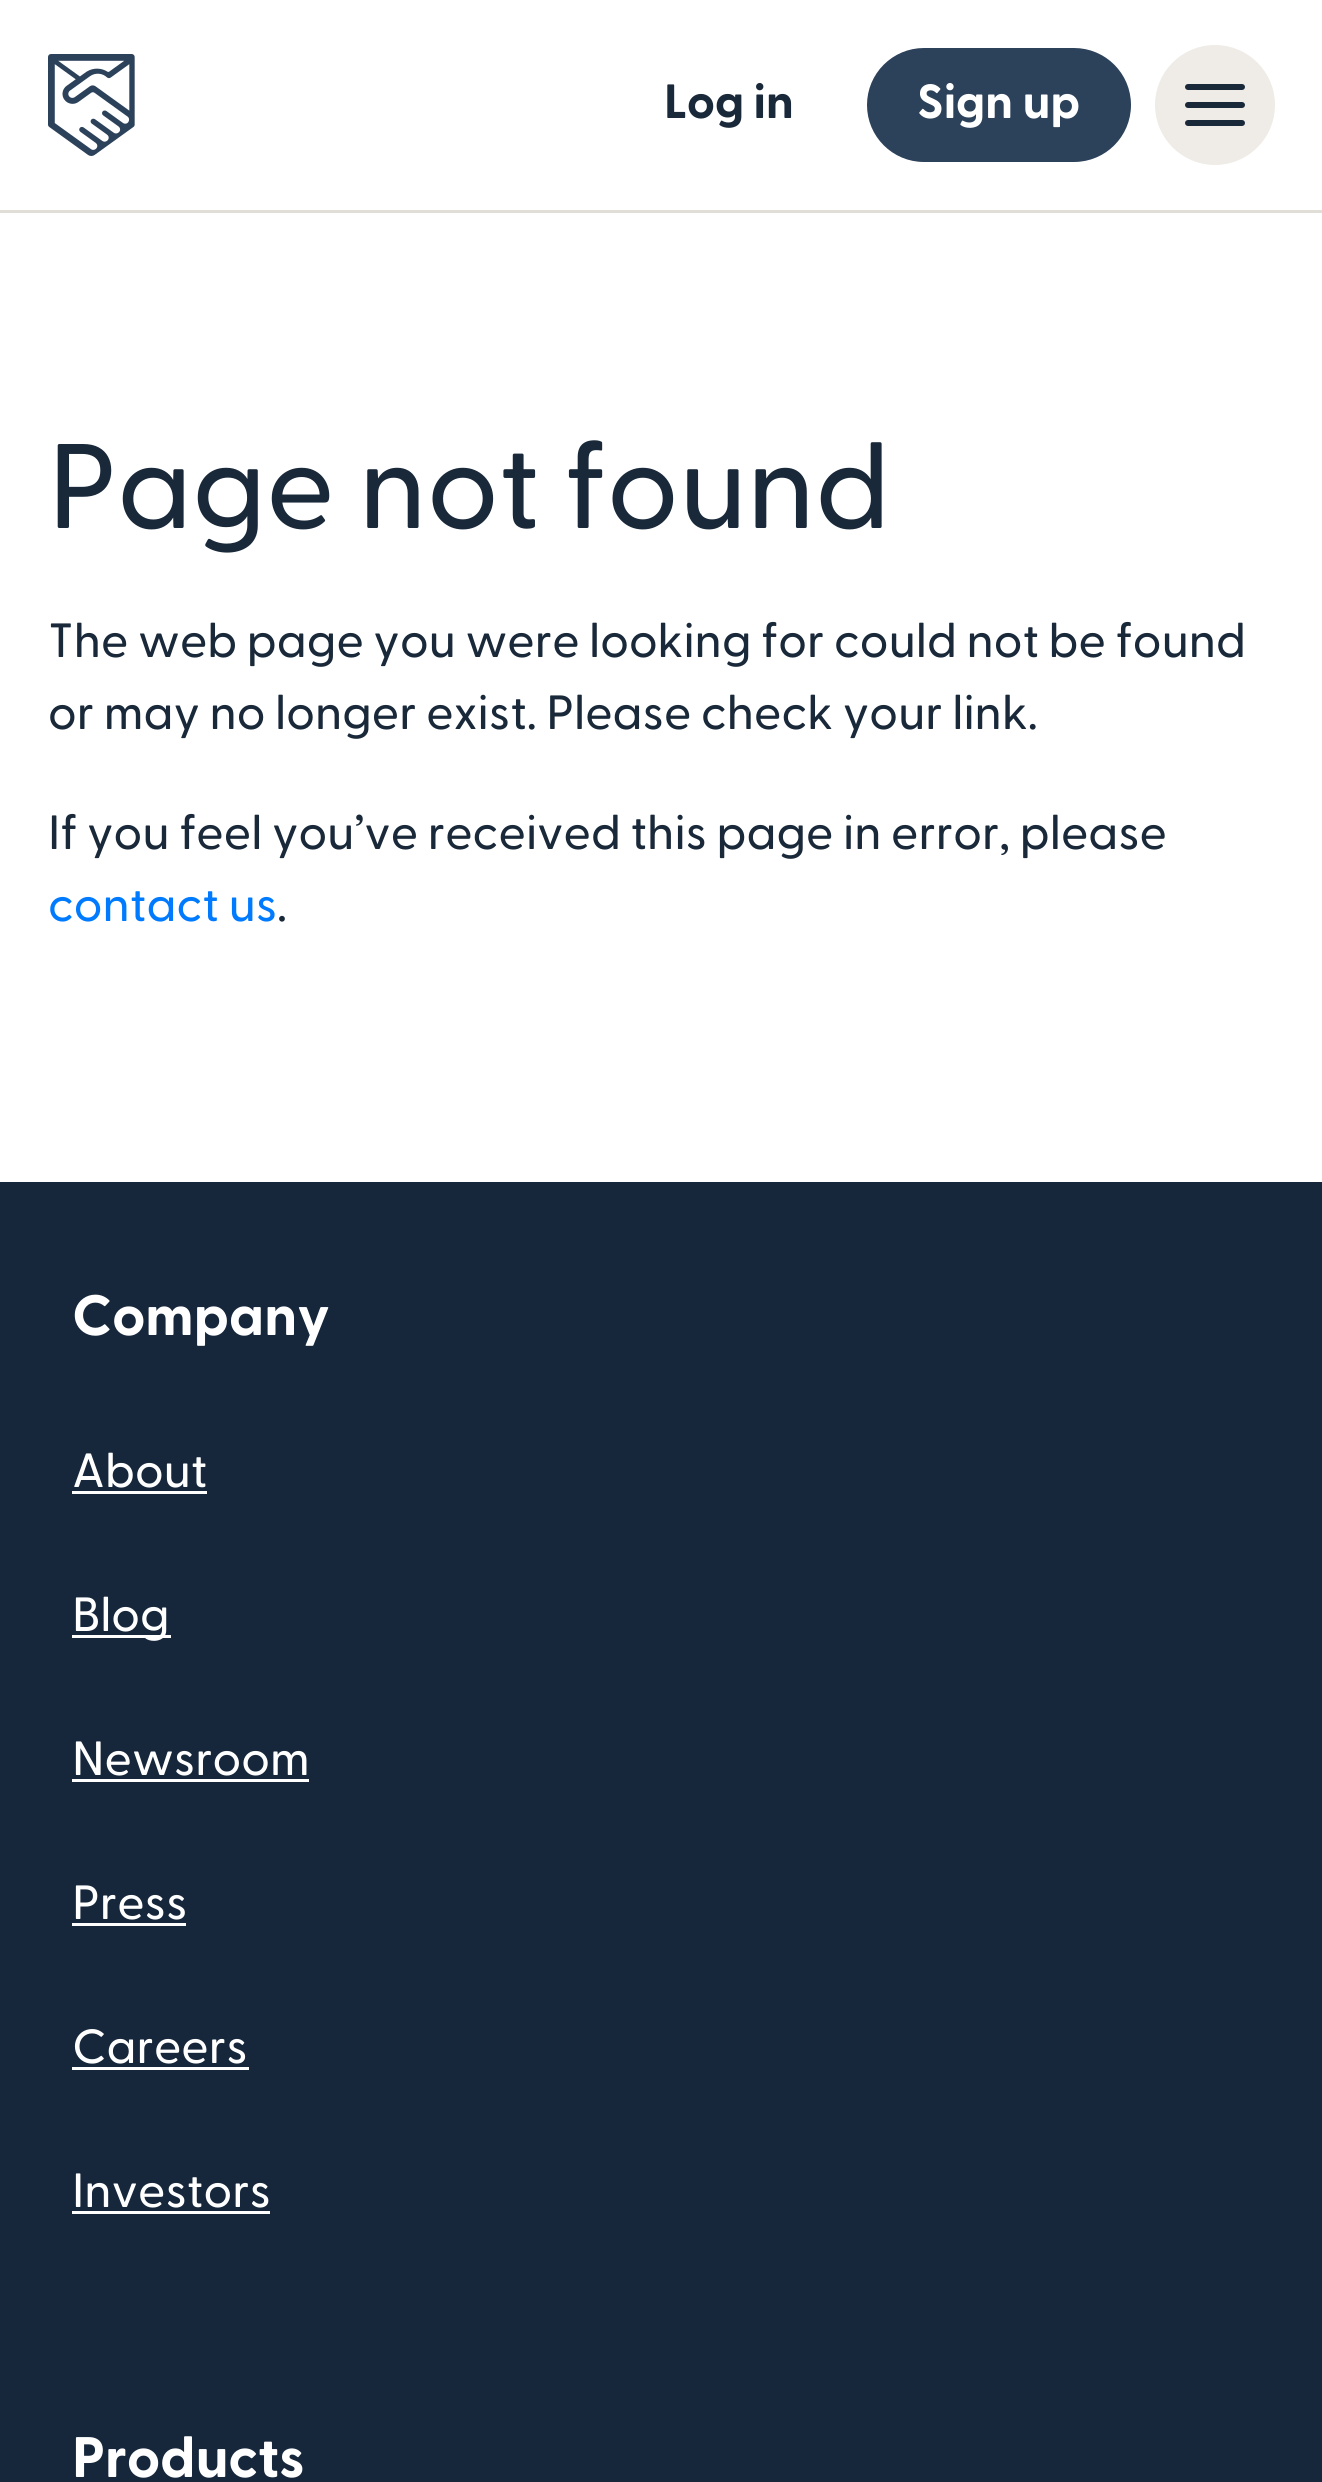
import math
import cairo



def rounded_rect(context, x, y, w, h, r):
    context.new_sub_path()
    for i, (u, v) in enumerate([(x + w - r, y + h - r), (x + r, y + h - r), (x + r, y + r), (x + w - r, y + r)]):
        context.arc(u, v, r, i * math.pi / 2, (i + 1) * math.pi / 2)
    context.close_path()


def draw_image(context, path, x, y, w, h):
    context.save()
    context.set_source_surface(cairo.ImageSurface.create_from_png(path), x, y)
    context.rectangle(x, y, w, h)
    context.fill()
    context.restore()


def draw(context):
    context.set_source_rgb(1, 1, 1)
    context.paint()
    context.set_source_rgb(225 / 255, 221 / 255, 215 / 255)
    context.rectangle(0, 210, 1322, 3)
    context.fill()
    draw_image(context, "images/1.png", 48, 54, 87, 102)
    context.set_source_rgb(44 / 255, 65 / 255, 90 / 255)
    rounded_rect(context, 867, 48, 264, 114, 57)
    context.fill()
    context.set_source_rgb(239 / 255, 236 / 255, 231 / 255)
    context.arc(1215, 105, 60, 0, 2 * math.pi)
    context.fill()
    context.set_source_rgb(25 / 255, 41 / 255, 58 / 255)
    rounded_rect(context, 1185, 84, 60, 6, 3)
    context.fill()
    rounded_rect(context, 1185, 102, 60, 6, 3)
    context.fill()
    rounded_rect(context, 1185, 120, 60, 6, 3)
    context.fill()
    context.set_source_rgb(22 / 255, 39 / 255, 60 / 255)
    context.rectangle(0, 1182, 1322, 1300)
    context.fill()
    context.set_source_rgb(1, 1, 1)
    context.rectangle(72, 1491, 135, 3)
    context.fill()
    context.rectangle(72, 1635, 99, 3)
    context.fill()
    context.rectangle(72, 1779, 237, 3)
    context.fill()
    context.rectangle(72, 1923, 114, 3)
    context.fill()
    context.rectangle(72, 2067, 177, 3)
    context.fill()
    context.rectangle(72, 2211, 198, 3)
    context.fill()
    context.select_font_face("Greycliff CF", cairo.FontSlant.NORMAL, cairo.FontWeight.BOLD)
    context.set_font_size(48)
    context.set_source_rgb(25 / 255, 41 / 255, 58 / 255)
    context.move_to(664, 118)
    context.show_text("Log in")
    context.set_source_rgb(1, 1, 1)
    context.move_to(917, 118)
    context.show_text("Sign up")
    context.select_font_face("Greycliff CF Medium")
    context.set_font_size(120)
    context.set_source_rgb(25 / 255, 41 / 255, 58 / 255)
    context.move_to(48, 528)
    context.show_text("Page not found")
    context.set_font_size(48)
    context.move_to(48, 657)
    context.show_text("The web page you were looking for could not be found")
    context.move_to(48, 729)
    context.show_text("or may no longer exist. Please check your link.")
    context.move_to(48, 849)
    context.show_text("If you feel you’ve received this page in error, please")
    context.set_source_rgb(0, 123 / 255, 1)
    context.move_to(48, 921)
    context.show_text("contact us")
    context.set_source_rgb(25 / 255, 41 / 255, 58 / 255)
    context.move_to(277, 921)
    context.show_text(".")
    context.select_font_face("Greycliff CF", cairo.FontSlant.NORMAL, cairo.FontWeight.BOLD)
    context.set_font_size(57)
    context.set_source_rgb(1, 1, 1)
    context.move_to(72, 1335)
    context.show_text("Company")
    context.select_font_face("Greycliff CF Medium")
    context.set_font_size(48)
    context.move_to(72, 1487)
    context.show_text("About")
    context.move_to(72, 1631)
    context.show_text("Blog")
    context.move_to(72, 1775)
    context.show_text("Newsroom")
    context.move_to(72, 1919)
    context.show_text("Press")
    context.move_to(72, 2063)
    context.show_text("Careers")
    context.move_to(72, 2207)
    context.show_text("Investors")
    context.select_font_face("Greycliff CF", cairo.FontSlant.NORMAL, cairo.FontWeight.BOLD)
    context.set_font_size(57)
    context.move_to(72, 2477)
    context.show_text("Products")


surface = cairo.ImageSurface(cairo.Format.RGB24, 1322, 2482)
context = cairo.Context(surface)
options = cairo.FontOptions()
options.set_hint_metrics(cairo.HintMetrics.OFF)
options.set_hint_style(cairo.HintStyle.NONE)
context.set_font_options(options)
context.set_miter_limit(4)
draw(context)
surface.write_to_png("out.png")
